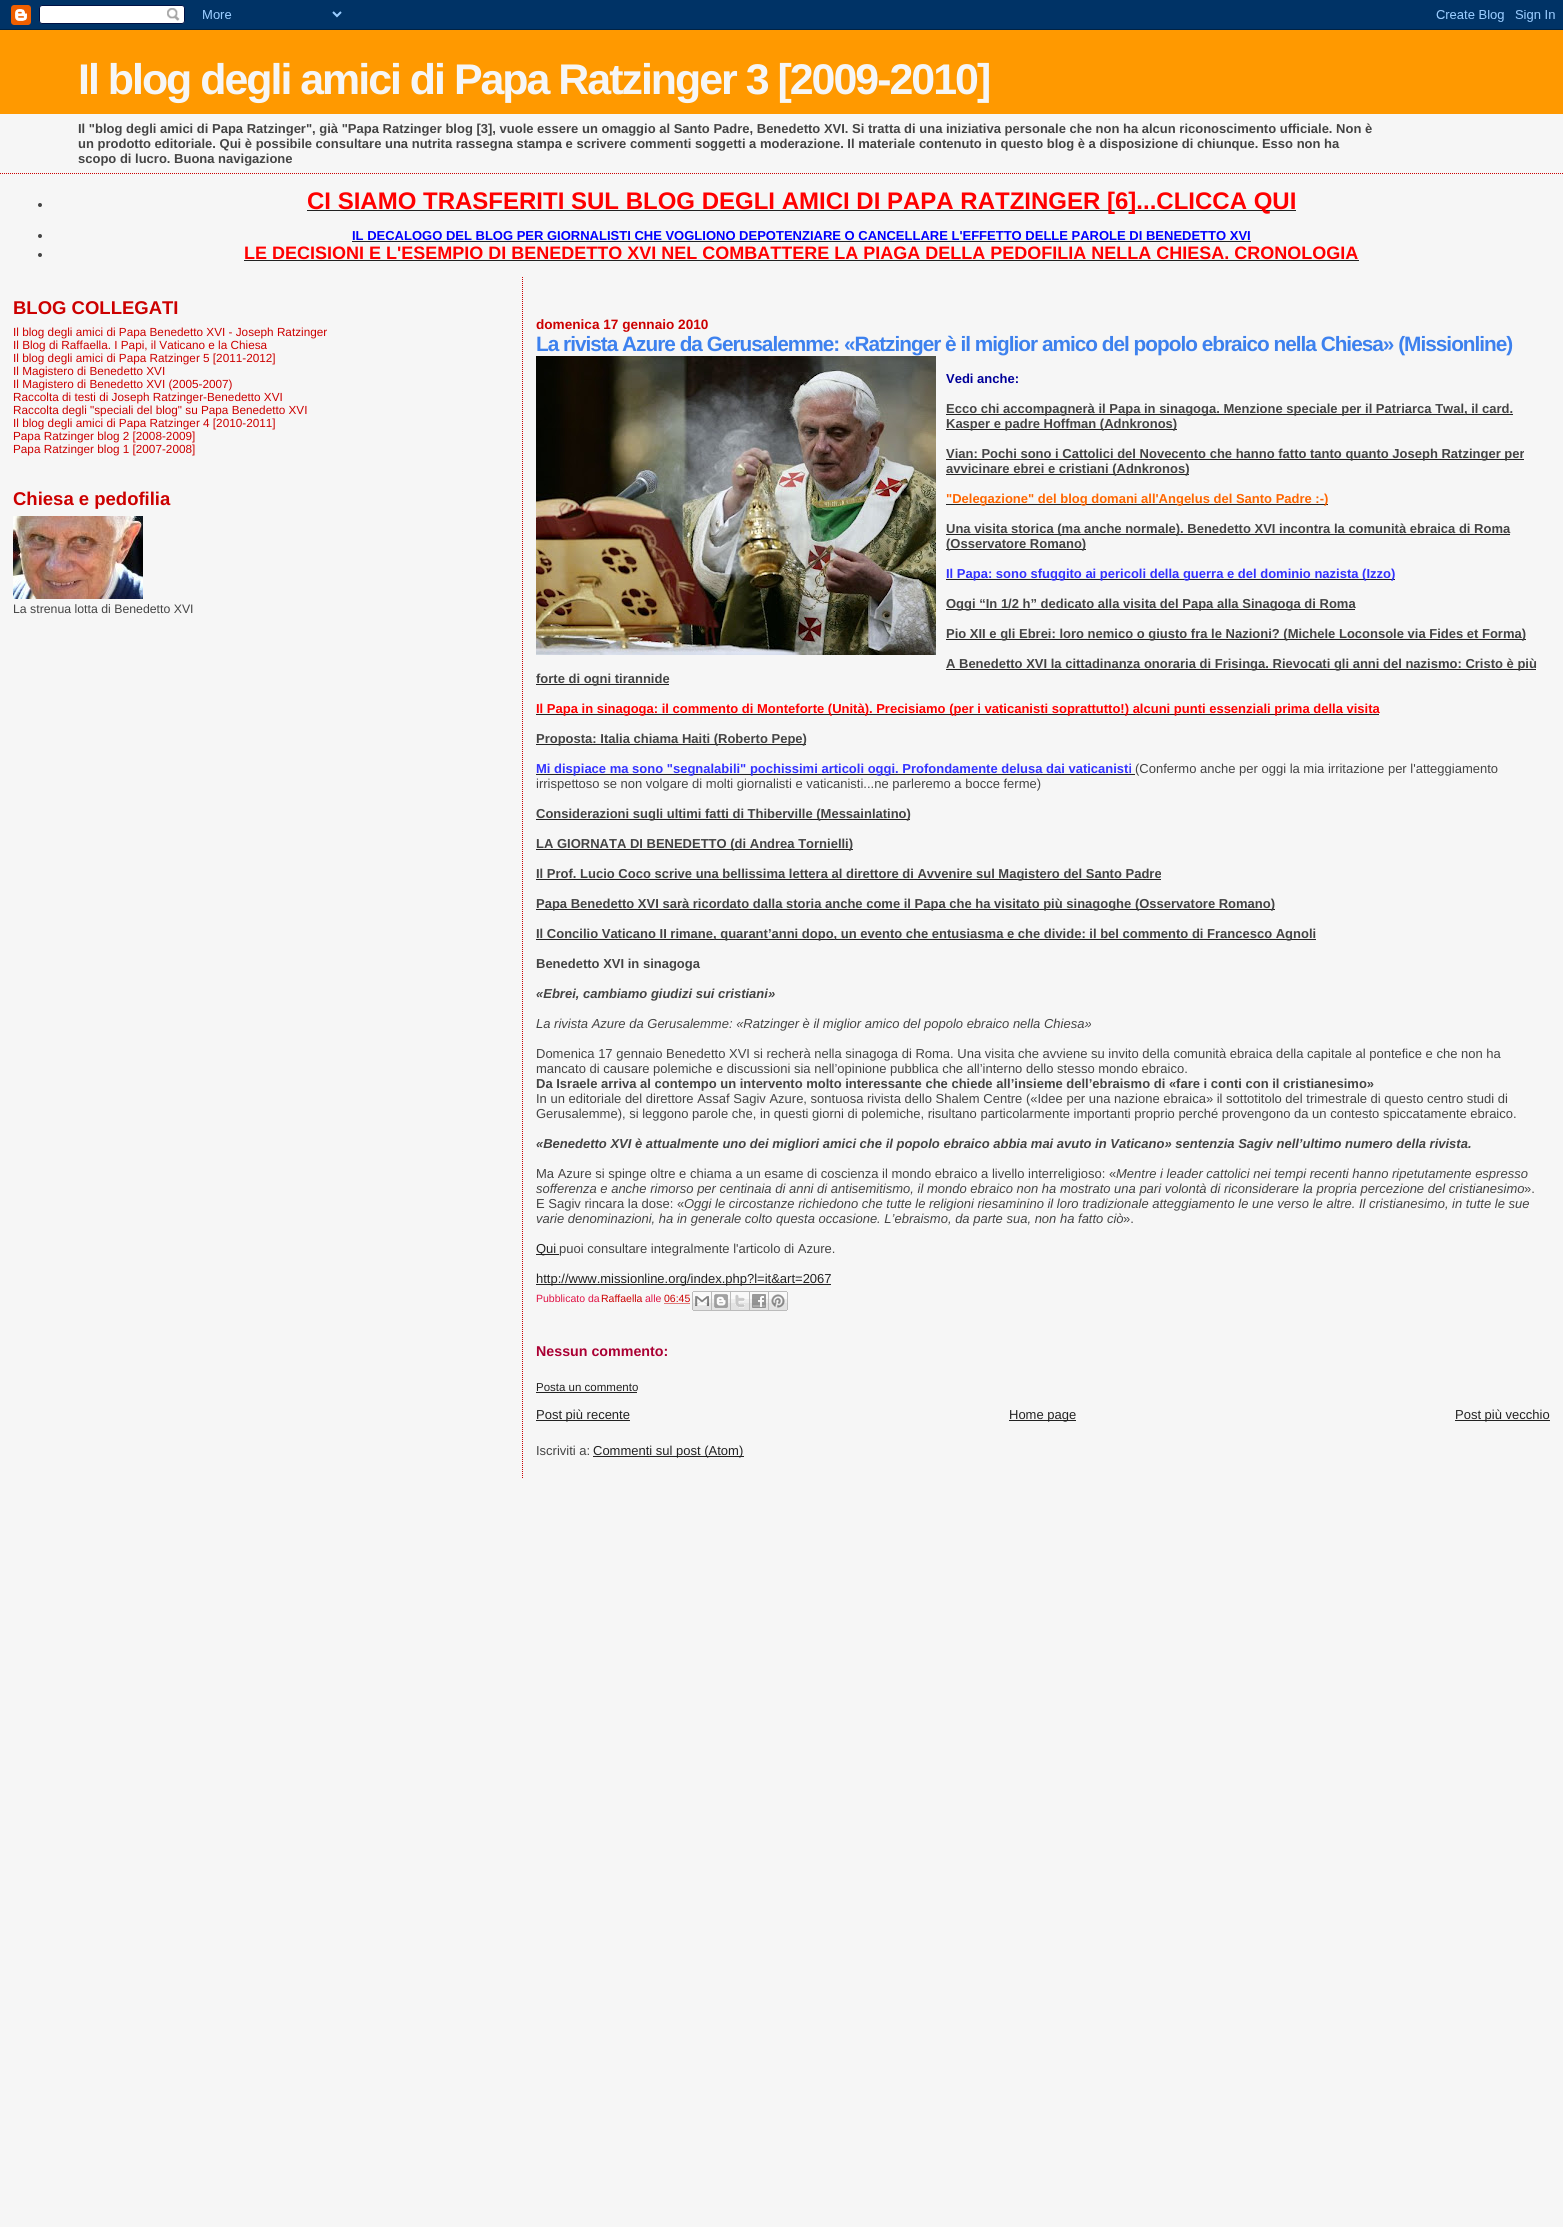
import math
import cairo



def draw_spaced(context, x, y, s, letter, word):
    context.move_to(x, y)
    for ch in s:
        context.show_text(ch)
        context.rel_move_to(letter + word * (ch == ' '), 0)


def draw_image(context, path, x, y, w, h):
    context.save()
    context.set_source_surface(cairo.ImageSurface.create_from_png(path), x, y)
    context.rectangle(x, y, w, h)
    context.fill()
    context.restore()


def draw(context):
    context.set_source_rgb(246 / 255, 246 / 255, 246 / 255)
    context.paint()
    draw_image(context, "images/1.png", 0, 0, 1563, 30)
    context.new_path()
    context.move_to(0, 173.5)
    context.line_to(1563, 173.5)
    context.set_source_rgb(204 / 255, 0, 0)
    context.set_line_width(1)
    context.set_dash([1, 1])
    context.stroke()
    context.set_source_rgb(1, 153 / 255, 0)
    context.rectangle(0, 30, 1563, 84)
    context.fill()
    context.set_source_rgb(68 / 255, 68 / 255, 68 / 255)
    context.arc(40, 205, 2, 0, 2 * math.pi)
    context.fill()
    context.set_source_rgb(34 / 255, 34 / 255, 34 / 255)
    context.rectangle(307, 210, 989, 1)
    context.fill()
    context.set_source_rgb(68 / 255, 68 / 255, 68 / 255)
    context.arc(40, 236, 2, 0, 2 * math.pi)
    context.fill()
    context.set_source_rgb(34 / 255, 34 / 255, 34 / 255)
    context.rectangle(352, 241, 899, 1)
    context.fill()
    context.set_source_rgb(68 / 255, 68 / 255, 68 / 255)
    context.arc(40, 255, 2, 0, 2 * math.pi)
    context.fill()
    context.set_source_rgb(34 / 255, 34 / 255, 34 / 255)
    context.rectangle(244, 260, 1115, 1)
    context.fill()
    draw_image(context, "images/2.png", 13, 516, 130, 83)
    context.new_path()
    context.move_to(522.5, 277)
    context.line_to(522.5, 1478)
    context.set_source_rgb(204 / 255, 0, 0)
    context.stroke()
    draw_image(context, "images/3.png", 536, 356, 400, 299)
    context.set_source_rgb(34 / 255, 34 / 255, 34 / 255)
    context.rectangle(946, 414, 567, 1)
    context.fill()
    context.rectangle(946, 429, 231, 1)
    context.fill()
    context.rectangle(946, 459, 578, 1)
    context.fill()
    context.rectangle(946, 474, 243, 1)
    context.fill()
    context.rectangle(946, 504, 382, 1)
    context.fill()
    context.rectangle(946, 534, 564, 1)
    context.fill()
    context.rectangle(946, 549, 140, 1)
    context.fill()
    context.rectangle(946, 579, 449, 1)
    context.fill()
    context.rectangle(946, 609, 409, 1)
    context.fill()
    context.rectangle(946, 639, 580, 1)
    context.fill()
    context.rectangle(946, 669, 590, 1)
    context.fill()
    context.rectangle(536, 684, 133, 1)
    context.fill()
    context.rectangle(536, 714, 843, 1)
    context.fill()
    context.rectangle(536, 744, 270, 1)
    context.fill()
    context.rectangle(536, 774, 599, 1)
    context.fill()
    context.rectangle(536, 819, 374, 1)
    context.fill()
    context.rectangle(536, 849, 317, 1)
    context.fill()
    context.rectangle(536, 879, 625, 1)
    context.fill()
    context.rectangle(536, 909, 739, 1)
    context.fill()
    context.rectangle(536, 939, 780, 1)
    context.fill()
    context.rectangle(536, 1254, 23, 1)
    context.fill()
    context.rectangle(536, 1284, 295, 1)
    context.fill()
    context.new_path()
    context.move_to(664.5, 1303.5)
    context.line_to(690.5, 1303.5)
    context.set_source_rgb(204 / 255, 0, 0)
    context.stroke()
    draw_image(context, "images/4.png", 692, 1291, 20, 20)
    draw_image(context, "images/5.png", 712, 1291, 19, 20)
    draw_image(context, "images/6.png", 731, 1291, 19, 20)
    draw_image(context, "images/7.png", 750, 1291, 19, 20)
    draw_image(context, "images/8.png", 769, 1291, 19, 20)
    context.set_source_rgb(34 / 255, 34 / 255, 34 / 255)
    context.rectangle(536, 1392, 101, 1)
    context.fill()
    context.rectangle(536, 1420, 94, 1)
    context.fill()
    context.rectangle(1009, 1420, 67, 1)
    context.fill()
    context.rectangle(1455, 1420, 95, 1)
    context.fill()
    context.rectangle(593, 1456, 151, 1)
    context.fill()
    context.select_font_face("Liberation Sans", cairo.FontSlant.NORMAL, cairo.FontWeight.BOLD)
    context.set_font_size(42.9)
    context.set_source_rgb(246 / 255, 246 / 255, 246 / 255)
    draw_spaced(context, 78, 94, "Il blog degli amici di Papa Ratzinger 3 [2009-2010]", -2, 0)
    context.set_font_size(13)
    context.set_source_rgb(68 / 255, 68 / 255, 68 / 255)
    context.move_to(78, 133)
    context.show_text("Il \"blog degli amici di Papa Ratzinger\", già \"Papa Ratzinger blog [3], vuole essere un omaggio al Santo Padre, Benedetto XVI. Si tratta di una iniziativa personale che non ha alcun riconoscimento ufficiale. Non è")
    context.move_to(78, 148)
    context.show_text("un prodotto editoriale. Qui è possibile consultare una nutrita rassegna stampa e scrivere commenti soggetti a moderazione. Il materiale contenuto in questo blog è a disposizione di chiunque. Esso non ha")
    context.move_to(78, 163)
    context.show_text("scopo di lucro. Buona navigazione")
    context.set_font_size(24)
    context.set_source_rgb(1, 0, 0)
    context.move_to(307, 209)
    context.show_text("CI SIAMO TRASFERITI SUL BLOG DEGLI AMICI DI PAPA RATZINGER [6]...CLICCA QUI")
    context.set_font_size(13)
    context.set_source_rgb(0, 0, 1)
    context.move_to(352, 240)
    context.show_text("IL DECALOGO DEL BLOG PER GIORNALISTI CHE VOGLIONO DEPOTENZIARE O CANCELLARE L'EFFETTO DELLE PAROLE DI BENEDETTO XVI")
    context.set_font_size(18)
    context.set_source_rgb(1, 0, 0)
    context.move_to(244, 259)
    context.show_text("LE DECISIONI E L'ESEMPIO DI BENEDETTO XVI NEL COMBATTERE LA PIAGA DELLA PEDOFILIA NELLA CHIESA. CRONOLOGIA")
    context.set_font_size(18.5)
    context.set_source_rgb(204 / 255, 0, 0)
    context.move_to(13, 314)
    context.show_text("BLOG COLLEGATI")
    context.select_font_face("Liberation Sans")
    context.set_font_size(11.75)
    context.move_to(13, 336)
    context.show_text("Il blog degli amici di Papa Benedetto XVI - Joseph Ratzinger")
    context.move_to(13, 349)
    context.show_text("Il Blog di Raffaella. I Papi, il Vaticano e la Chiesa")
    context.move_to(13, 362)
    context.show_text("Il blog degli amici di Papa Ratzinger 5 [2011-2012]")
    context.move_to(13, 375)
    context.show_text("Il Magistero di Benedetto XVI")
    context.move_to(13, 388)
    context.show_text("Il Magistero di Benedetto XVI (2005-2007)")
    context.move_to(13, 401)
    context.show_text("Raccolta di testi di Joseph Ratzinger-Benedetto XVI")
    context.move_to(13, 414)
    context.show_text("Raccolta degli \"speciali del blog\" su Papa Benedetto XVI")
    context.move_to(13, 427)
    context.show_text("Il blog degli amici di Papa Ratzinger 4 [2010-2011]")
    context.move_to(13, 440)
    context.show_text("Papa Ratzinger blog 2 [2008-2009]")
    context.move_to(13, 453)
    context.show_text("Papa Ratzinger blog 1 [2007-2008]")
    context.select_font_face("Liberation Sans", cairo.FontSlant.NORMAL, cairo.FontWeight.BOLD)
    context.set_font_size(18.5)
    context.move_to(13, 505)
    context.show_text("Chiesa e pedofilia")
    context.select_font_face("Liberation Sans")
    context.set_font_size(12.3)
    context.set_source_rgb(68 / 255, 68 / 255, 68 / 255)
    context.move_to(13, 613)
    context.show_text("La strenua lotta di Benedetto XVI")
    context.select_font_face("Liberation Sans", cairo.FontSlant.NORMAL, cairo.FontWeight.BOLD)
    context.set_font_size(13.6)
    context.set_source_rgb(204 / 255, 0, 0)
    context.move_to(536, 329)
    context.show_text("domenica 17 gennaio 2010")
    context.set_font_size(20.8)
    context.set_source_rgb(61 / 255, 129 / 255, 238 / 255)
    draw_spaced(context, 536, 351, "La rivista Azure da Gerusalemme: «Ratzinger è il miglior amico del popolo ebraico nella Chiesa» (Missionline)", -1, 0)
    context.set_font_size(13)
    context.set_source_rgb(0, 0, 153 / 255)
    context.move_to(946, 383)
    context.show_text("Vedi anche:")
    context.set_source_rgb(68 / 255, 68 / 255, 68 / 255)
    context.move_to(946, 413)
    context.show_text("Ecco chi accompagnerà il Papa in sinagoga. Menzione speciale per il Patriarca Twal, il card.")
    context.move_to(946, 428)
    context.show_text("Kasper e padre Hoffman (Adnkronos)")
    context.move_to(946, 458)
    context.show_text("Vian: Pochi sono i Cattolici del Novecento che hanno fatto tanto quanto Joseph Ratzinger per")
    context.move_to(946, 473)
    context.show_text("avvicinare ebrei e cristiani (Adnkronos)")
    context.set_source_rgb(1, 102 / 255, 0)
    context.move_to(946, 503)
    context.show_text("\"Delegazione\" del blog domani all'Angelus del Santo Padre :-)")
    context.set_source_rgb(68 / 255, 68 / 255, 68 / 255)
    context.move_to(946, 533)
    context.show_text("Una visita storica (ma anche normale). Benedetto XVI incontra la comunità ebraica di Roma")
    context.move_to(946, 548)
    context.show_text("(Osservatore Romano)")
    context.set_source_rgb(51 / 255, 51 / 255, 1)
    context.move_to(946, 578)
    context.show_text("Il Papa: sono sfuggito ai pericoli della guerra e del dominio nazista (Izzo)")
    context.set_source_rgb(68 / 255, 68 / 255, 68 / 255)
    context.move_to(946, 608)
    context.show_text("Oggi “In 1/2 h” dedicato alla visita del Papa alla Sinagoga di Roma")
    context.move_to(946, 638)
    context.show_text("Pio XII e gli Ebrei: loro nemico o giusto fra le Nazioni? (Michele Loconsole via Fides et Forma)")
    context.move_to(946, 668)
    context.show_text("A Benedetto XVI la cittadinanza onoraria di Frisinga. Rievocati gli anni del nazismo: Cristo è più")
    context.move_to(536, 683)
    context.show_text("forte di ogni tirannide")
    context.set_source_rgb(1, 0, 0)
    context.move_to(536, 713)
    context.show_text("Il Papa in sinagoga: il commento di Monteforte (Unità). Precisiamo (per i vaticanisti soprattutto!) alcuni punti essenziali prima della visita")
    context.set_source_rgb(68 / 255, 68 / 255, 68 / 255)
    context.move_to(536, 743)
    context.show_text("Proposta: Italia chiama Haiti (Roberto Pepe)")
    context.set_source_rgb(51 / 255, 51 / 255, 1)
    context.move_to(536, 773)
    context.show_text("Mi dispiace ma sono \"segnalabili\" pochissimi articoli oggi. Profondamente delusa dai vaticanisti")
    context.select_font_face("Liberation Sans")
    context.set_source_rgb(68 / 255, 68 / 255, 68 / 255)
    context.move_to(1135, 773)
    context.show_text("(Confermo anche per oggi la mia irritazione per l'atteggiamento")
    context.move_to(536, 788)
    context.show_text("irrispettoso se non volgare di molti giornalisti e vaticanisti...ne parleremo a bocce ferme)")
    context.select_font_face("Liberation Sans", cairo.FontSlant.NORMAL, cairo.FontWeight.BOLD)
    context.move_to(536, 818)
    context.show_text("Considerazioni sugli ultimi fatti di Thiberville (Messainlatino)")
    context.move_to(536, 848)
    context.show_text("LA GIORNATA DI BENEDETTO (di Andrea Tornielli)")
    context.move_to(536, 878)
    context.show_text("Il Prof. Lucio Coco scrive una bellissima lettera al direttore di Avvenire sul Magistero del Santo Padre")
    context.move_to(536, 908)
    context.show_text("Papa Benedetto XVI sarà ricordato dalla storia anche come il Papa che ha visitato più sinagoghe (Osservatore Romano)")
    context.move_to(536, 938)
    context.show_text("Il Concilio Vaticano II rimane, quarant’anni dopo, un evento che entusiasma e che divide: il bel commento di Francesco Agnoli")
    context.move_to(536, 968)
    context.show_text("Benedetto XVI in sinagoga")
    context.select_font_face("Liberation Sans", cairo.FontSlant.ITALIC, cairo.FontWeight.BOLD)
    context.move_to(536, 998)
    context.show_text("«Ebrei, cambiamo giudizi sui cristiani»")
    context.select_font_face("Liberation Sans", cairo.FontSlant.ITALIC)
    context.move_to(536, 1028)
    context.show_text("La rivista Azure da Gerusalemme: «Ratzinger è il miglior amico del popolo ebraico nella Chiesa»")
    context.select_font_face("Liberation Sans")
    context.move_to(536, 1058)
    context.show_text("Domenica 17 gennaio Benedetto XVI si recherà nella sinagoga di Roma. Una visita che avviene su invito della comunità ebraica della capitale al pontefice e che non ha")
    context.move_to(536, 1073)
    context.show_text("mancato di causare polemiche e discussioni sia nell’opinione pubblica che all’interno dello stesso mondo ebraico.")
    context.select_font_face("Liberation Sans", cairo.FontSlant.NORMAL, cairo.FontWeight.BOLD)
    context.move_to(536, 1088)
    context.show_text("Da Israele arriva al contempo un intervento molto interessante che chiede all’insieme dell’ebraismo di «fare i conti con il cristianesimo»")
    context.select_font_face("Liberation Sans")
    context.move_to(536, 1103)
    context.show_text("In un editoriale del direttore Assaf Sagiv Azure, sontuosa rivista dello Shalem Centre («Idee per una nazione ebraica» il sottotitolo del trimestrale di questo centro studi di")
    context.move_to(536, 1118)
    context.show_text("Gerusalemme), si leggono parole che, in questi giorni di polemiche, risultano particolarmente importanti proprio perché provengono da un contesto spiccatamente ebraico.")
    context.select_font_face("Liberation Sans", cairo.FontSlant.ITALIC, cairo.FontWeight.BOLD)
    context.move_to(536, 1148)
    context.show_text("«Benedetto XVI è attualmente uno dei migliori amici che il popolo ebraico abbia mai avuto in Vaticano» sentenzia Sagiv nell’ultimo numero della rivista.")
    context.select_font_face("Liberation Sans")
    context.move_to(536, 1178)
    context.show_text("Ma Azure si spinge oltre e chiama a un esame di coscienza il mondo ebraico a livello interreligioso: «")
    context.select_font_face("Liberation Sans", cairo.FontSlant.ITALIC)
    context.move_to(1116, 1178)
    context.show_text("Mentre i leader cattolici nei tempi recenti hanno ripetutamente espresso")
    context.move_to(536, 1193)
    context.show_text("sofferenza e anche rimorso per centinaia di anni di antisemitismo, il mondo ebraico non ha mostrato una pari volontà di riconsiderare la propria percezione del cristianesimo")
    context.select_font_face("Liberation Sans")
    context.move_to(1524, 1193)
    context.show_text("».")
    context.move_to(536, 1208)
    context.show_text("E Sagiv rincara la dose: «")
    context.select_font_face("Liberation Sans", cairo.FontSlant.ITALIC)
    context.move_to(684, 1208)
    context.show_text("Oggi le circostanze richiedono che tutte le religioni riesaminino il loro tradizionale atteggiamento le une verso le altre. Il cristianesimo, in tutte le sue")
    context.move_to(536, 1223)
    context.show_text("varie denominazioni, ha in generale colto questa occasione. L’ebraismo, da parte sua, non ha fatto ciò")
    context.select_font_face("Liberation Sans")
    context.move_to(1123, 1223)
    context.show_text("».")
    context.set_source_rgb(34 / 255, 34 / 255, 34 / 255)
    context.move_to(536, 1253)
    context.show_text("Qui")
    context.set_source_rgb(68 / 255, 68 / 255, 68 / 255)
    context.move_to(559, 1253)
    context.show_text("puoi consultare integralmente l'articolo di Azure.")
    context.set_source_rgb(34 / 255, 34 / 255, 34 / 255)
    context.move_to(536, 1283)
    context.show_text("http://www.missionline.org/index.php?l=it&art=2067")
    context.set_font_size(10.5)
    context.set_source_rgb(224 / 255, 18 / 255, 69 / 255)
    context.move_to(536, 1302)
    context.show_text("Pubblicato da")
    context.set_source_rgb(204 / 255, 0, 0)
    context.move_to(601, 1302)
    context.show_text("Raffaella")
    context.set_source_rgb(224 / 255, 18 / 255, 69 / 255)
    context.move_to(645, 1302)
    context.show_text("alle")
    context.set_source_rgb(204 / 255, 0, 0)
    context.move_to(664, 1302)
    context.show_text("06:45")
    context.select_font_face("Liberation Sans", cairo.FontSlant.NORMAL, cairo.FontWeight.BOLD)
    context.set_font_size(14.25)
    context.set_source_rgb(170 / 255, 0, 51 / 255)
    context.move_to(536, 1356)
    context.show_text("Nessun commento:")
    context.select_font_face("Liberation Sans")
    context.set_font_size(11.5)
    context.set_source_rgb(34 / 255, 34 / 255, 34 / 255)
    context.move_to(536, 1391)
    context.show_text("Posta un commento")
    context.set_font_size(13)
    context.move_to(536, 1419)
    context.show_text("Post più recente")
    context.move_to(1009, 1419)
    context.show_text("Home page")
    context.move_to(1455, 1419)
    context.show_text("Post più vecchio")
    context.set_source_rgb(68 / 255, 68 / 255, 68 / 255)
    context.move_to(536, 1455)
    context.show_text("Iscriviti a:")
    context.set_source_rgb(34 / 255, 34 / 255, 34 / 255)
    context.move_to(593, 1455)
    context.show_text("Commenti sul post (Atom)")


surface = cairo.ImageSurface(cairo.Format.RGB24, 1563, 2227)
context = cairo.Context(surface)
options = cairo.FontOptions()
options.set_hint_metrics(cairo.HintMetrics.OFF)
options.set_hint_style(cairo.HintStyle.NONE)
context.set_font_options(options)
context.set_miter_limit(4)
draw(context)
surface.write_to_png("out.png")
